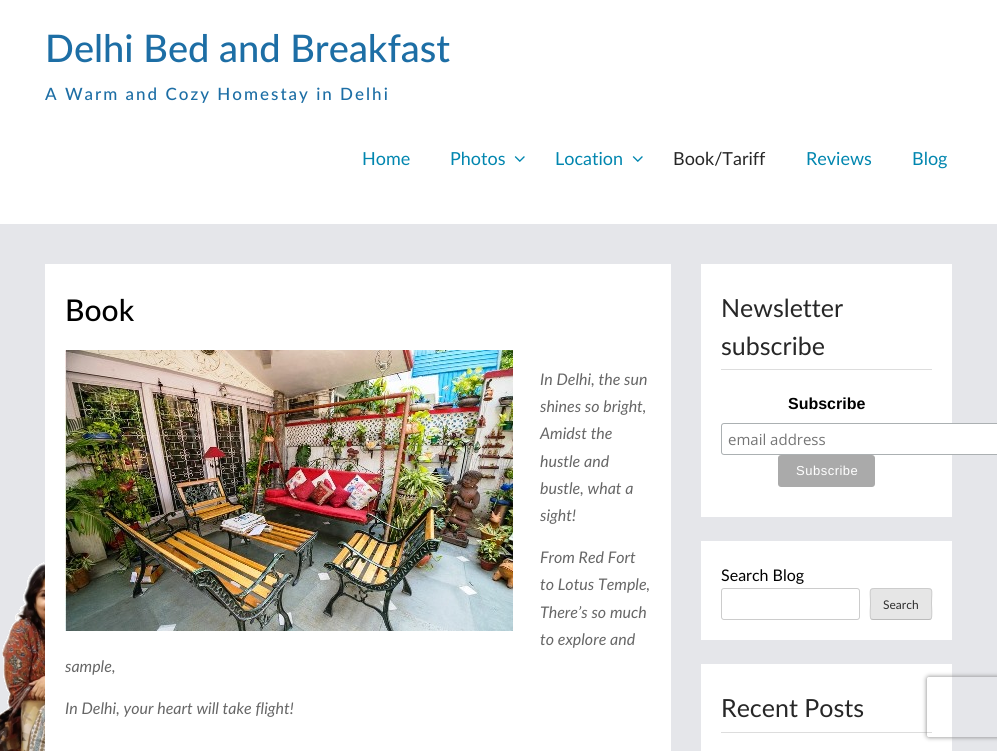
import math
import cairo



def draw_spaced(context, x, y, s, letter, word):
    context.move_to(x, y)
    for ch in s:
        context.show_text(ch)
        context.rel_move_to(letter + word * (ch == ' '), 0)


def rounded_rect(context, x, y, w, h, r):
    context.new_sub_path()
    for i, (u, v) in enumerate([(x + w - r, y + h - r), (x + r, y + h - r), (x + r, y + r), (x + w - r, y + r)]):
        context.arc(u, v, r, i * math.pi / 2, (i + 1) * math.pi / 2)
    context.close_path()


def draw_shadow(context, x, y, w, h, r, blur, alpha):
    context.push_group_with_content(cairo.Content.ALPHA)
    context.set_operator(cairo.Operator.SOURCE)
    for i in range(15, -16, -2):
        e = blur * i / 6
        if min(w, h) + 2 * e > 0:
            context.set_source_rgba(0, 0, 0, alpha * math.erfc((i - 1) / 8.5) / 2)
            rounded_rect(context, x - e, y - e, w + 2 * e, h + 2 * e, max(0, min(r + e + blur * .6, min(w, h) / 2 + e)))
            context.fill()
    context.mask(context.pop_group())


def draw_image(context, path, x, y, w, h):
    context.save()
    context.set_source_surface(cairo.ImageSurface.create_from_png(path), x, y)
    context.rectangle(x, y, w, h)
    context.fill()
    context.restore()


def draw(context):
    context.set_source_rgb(229 / 255, 230 / 255, 234 / 255)
    context.paint()
    draw_image(context, "images/1.png", 0, 562, 45, 189)
    context.set_source_rgb(1, 1, 1)
    context.rectangle(0, 0, 997, 224)
    context.fill()
    draw_image(context, "images/2.png", 514, 156, 11, 6)
    draw_image(context, "images/2.png", 632, 156, 11, 6)
    context.rectangle(45, 264, 626, 487)
    context.fill()
    draw_image(context, "images/3.png", 65, 350, 448, 281)
    context.rectangle(701, 264, 251, 253)
    context.fill()
    context.set_source_rgb(221 / 255, 221 / 255, 221 / 255)
    context.rectangle(721, 369, 211, 1)
    context.fill()
    context.set_source_rgb(1, 1, 1)
    rounded_rect(context, 721.5, 423.5, 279, 31, 2.5)
    context.fill_preserve()
    context.set_source_rgb(171 / 255, 176 / 255, 178 / 255)
    context.set_line_width(1)
    context.stroke()
    context.set_source_rgb(170 / 255, 170 / 255, 170 / 255)
    rounded_rect(context, 778, 455, 97, 32, 3)
    context.fill()
    context.set_source_rgb(1, 1, 1)
    context.rectangle(701, 541, 251, 99)
    context.fill()
    rounded_rect(context, 721.5, 588.5, 138, 31, 2.5)
    context.set_source_rgb(204 / 255, 204 / 255, 204 / 255)
    context.stroke()
    context.set_source_rgb(230 / 255, 230 / 255, 230 / 255)
    rounded_rect(context, 870, 588, 62, 32, 3)
    context.fill()
    context.new_path()
    context.move_to(931, 619)
    context.line_to(929, 619.5)
    context.line_to(873, 619.5)
    context.line_to(871, 619)
    context.set_source_rgb(187 / 255, 187 / 255, 187 / 255)
    context.stroke()
    context.new_path()
    context.move_to(871, 619)
    context.curve_to(869.5, 617, 870.5, 606.5, 870.5, 604)
    context.curve_to(870.5, 587, 867, 588.5, 882.5, 588.5)
    context.line_to(919.5, 588.5)
    context.curve_to(935, 588.5, 931.5, 587, 931.5, 604)
    context.curve_to(931.5, 606.5, 932.5, 617, 931, 619)
    context.set_source_rgb(204 / 255, 204 / 255, 204 / 255)
    context.stroke()
    context.set_source_rgb(1, 1, 1)
    context.rectangle(701, 664, 251, 87)
    context.fill()
    context.set_source_rgb(221 / 255, 221 / 255, 221 / 255)
    context.rectangle(721, 732, 211, 1)
    context.fill()
    context.save()
    context.set_fill_rule(cairo.FillRule.EVEN_ODD)
    context.new_path()
    context.move_to(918, 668)
    context.line_to(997, 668)
    context.line_to(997, 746)
    context.line_to(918, 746)
    context.close_path()
    context.move_to(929, 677)
    context.line_to(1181, 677)
    context.curve_to(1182, 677, 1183, 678, 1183, 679)
    context.line_to(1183, 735)
    context.curve_to(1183, 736, 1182, 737, 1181, 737)
    context.line_to(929, 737)
    context.curve_to(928, 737, 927, 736, 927, 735)
    context.line_to(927, 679)
    context.curve_to(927, 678, 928, 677, 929, 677)
    context.close_path()
    context.clip()
    context.set_source_rgb(128 / 255, 128 / 255, 128 / 255)
    draw_shadow(context, 927, 677, 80, 60, 2, 2.5, 1)
    context.restore()
    context.select_font_face("Lato Medium")
    context.set_font_size(38)
    context.set_source_rgb(29 / 255, 110 / 255, 165 / 255)
    context.move_to(45, 62)
    context.show_text("Delhi Bed and Breakfast")
    context.set_font_size(17)
    draw_spaced(context, 45, 100, "A Warm and Cozy Homestay in Delhi", 2, 0)
    context.select_font_face("Lato")
    context.set_font_size(18)
    context.set_source_rgb(1 / 255, 134 / 255, 175 / 255)
    context.move_to(362, 165)
    context.show_text("Home")
    context.move_to(450, 165)
    context.show_text("Photos")
    context.move_to(555, 165)
    context.show_text("Location")
    context.set_source_rgb(39 / 255, 39 / 255, 39 / 255)
    context.move_to(673, 165)
    context.show_text("Book/Tariff")
    context.set_source_rgb(1 / 255, 134 / 255, 175 / 255)
    context.move_to(806, 165)
    context.show_text("Reviews")
    context.move_to(912, 165)
    context.show_text("Blog")
    context.select_font_face("Lato Medium")
    context.set_font_size(30)
    context.set_source_rgb(0, 0, 0)
    context.move_to(65, 321)
    context.show_text("Book")
    context.select_font_face("Lato", cairo.FontSlant.ITALIC)
    context.set_font_size(16)
    context.set_source_rgb(102 / 255, 102 / 255, 102 / 255)
    context.move_to(540, 385)
    context.show_text("In Delhi, the sun")
    context.move_to(540, 412)
    context.show_text("shines so bright,")
    context.move_to(540, 439)
    context.show_text("Amidst the")
    context.move_to(540, 467)
    context.show_text("hustle and")
    context.move_to(540, 494)
    context.show_text("bustle, what a")
    context.move_to(540, 521)
    context.show_text("sight!")
    context.move_to(540, 563)
    context.show_text("From Red Fort")
    context.move_to(540, 590)
    context.show_text("to Lotus Temple,")
    context.move_to(540, 618)
    context.show_text("There’s so much")
    context.move_to(540, 645)
    context.show_text("to explore and")
    context.move_to(65, 672)
    context.show_text("sample,")
    context.move_to(65, 714)
    context.show_text("In Delhi, your heart will take flight!")
    context.select_font_face("Lato")
    context.set_font_size(25)
    context.set_source_rgb(39 / 255, 39 / 255, 39 / 255)
    context.move_to(721, 317)
    context.show_text("Newsletter")
    context.move_to(721, 355)
    context.show_text("subscribe")
    context.select_font_face("Liberation Sans", cairo.FontSlant.NORMAL, cairo.FontWeight.BOLD)
    context.set_font_size(16)
    context.set_source_rgb(0, 0, 0)
    context.move_to(788, 409)
    context.show_text("Subscribe")
    context.select_font_face("Open Sans")
    context.set_font_size(15)
    context.set_source_rgb(117 / 255, 117 / 255, 117 / 255)
    context.move_to(728, 445)
    context.show_text("email address")
    context.select_font_face("Liberation Sans")
    context.set_font_size(13)
    context.set_source_rgb(1, 1, 1)
    draw_spaced(context, 796, 475, "Subscribe", 0.5, 0)
    context.select_font_face("Lato")
    context.set_font_size(16)
    context.set_source_rgb(0, 0, 0)
    context.move_to(721, 581)
    context.show_text("Search Blog")
    context.set_font_size(12)
    context.set_source_rgb(46 / 255, 46 / 255, 46 / 255)
    context.move_to(883, 609)
    context.show_text("Search")
    context.set_font_size(25)
    context.set_source_rgb(39 / 255, 39 / 255, 39 / 255)
    context.move_to(721, 717)
    context.show_text("Recent Posts")


surface = cairo.ImageSurface(cairo.Format.RGB24, 997, 751)
context = cairo.Context(surface)
options = cairo.FontOptions()
options.set_hint_metrics(cairo.HintMetrics.OFF)
options.set_hint_style(cairo.HintStyle.NONE)
context.set_font_options(options)
context.set_miter_limit(4)
draw(context)
surface.write_to_png("out.png")
